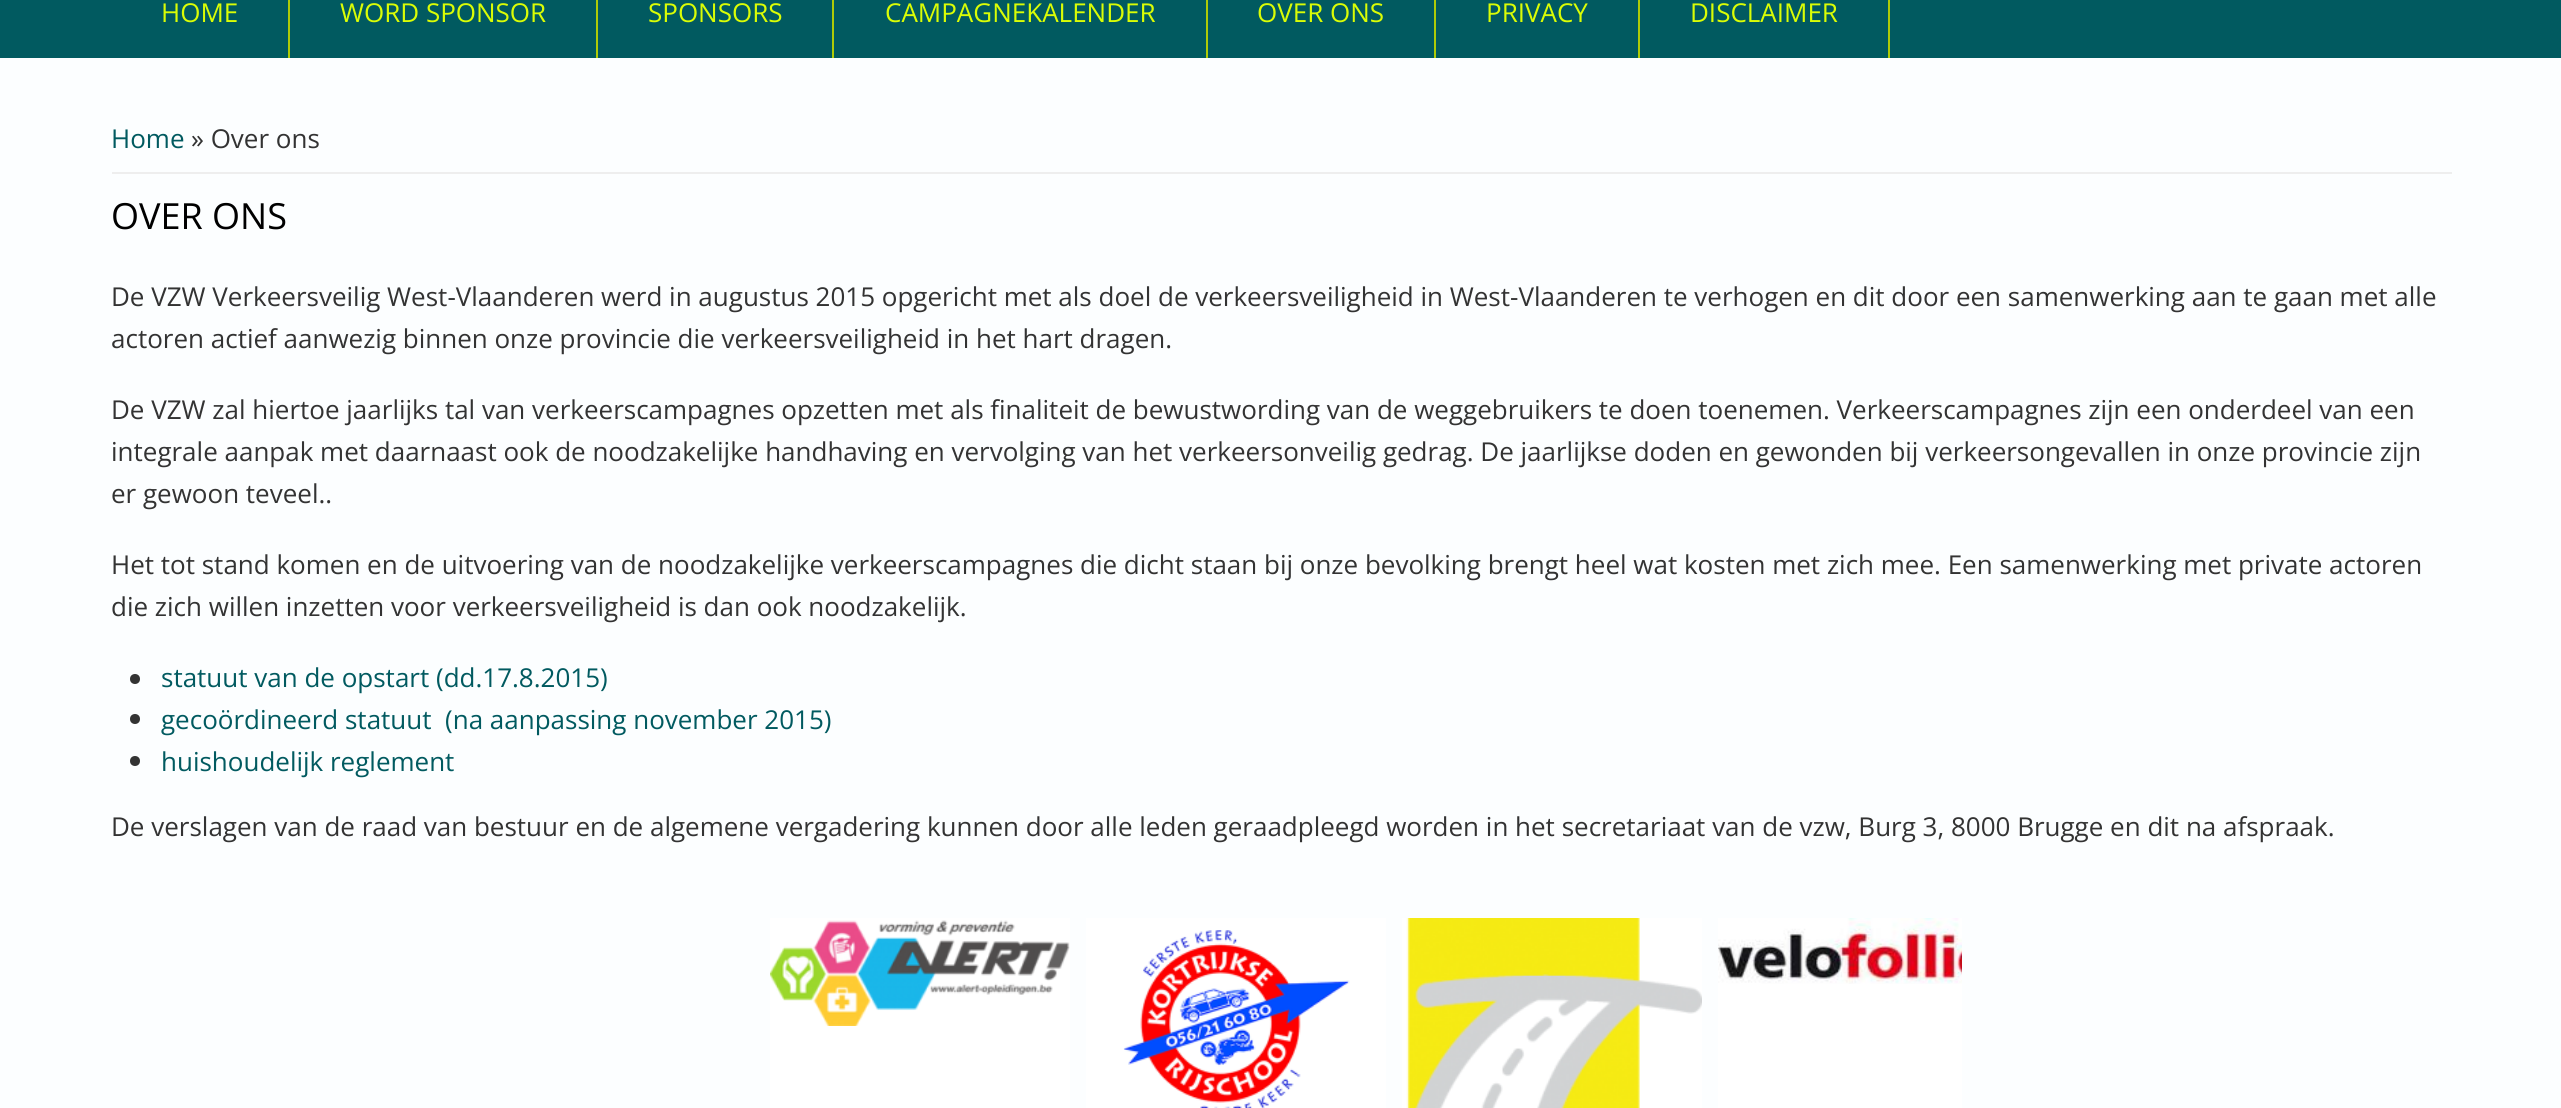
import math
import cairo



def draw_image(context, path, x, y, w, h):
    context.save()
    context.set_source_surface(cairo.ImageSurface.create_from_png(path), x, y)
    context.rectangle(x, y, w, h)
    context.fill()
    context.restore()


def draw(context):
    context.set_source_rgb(252 / 255, 254 / 255, 1)
    context.paint()
    context.set_source_rgb(1 / 255, 90 / 255, 96 / 255)
    context.rectangle(0, 0, 2561, 58)
    context.fill()
    context.set_source_rgb(175 / 255, 203 / 255, 7 / 255)
    context.rectangle(288, 0, 2, 58)
    context.fill()
    context.rectangle(596, 0, 2, 58)
    context.fill()
    context.rectangle(832, 0, 2, 58)
    context.fill()
    context.rectangle(1206, 0, 2, 58)
    context.fill()
    context.rectangle(1434, 0, 2, 58)
    context.fill()
    context.rectangle(1638, 0, 2, 58)
    context.fill()
    context.rectangle(1888, 0, 2, 58)
    context.fill()
    context.set_source_rgb(238 / 255, 238 / 255, 238 / 255)
    context.rectangle(112, 172, 2340, 2)
    context.fill()
    context.set_source_rgb(51 / 255, 51 / 255, 51 / 255)
    context.arc(135, 679, 5, 0, 2 * math.pi)
    context.fill()
    context.arc(135, 719, 5, 0, 2 * math.pi)
    context.fill()
    context.arc(135, 761, 5, 0, 2 * math.pi)
    context.fill()
    context.set_source_rgb(1, 1, 1)
    context.rectangle(770, 918, 300, 190)
    context.fill()
    draw_image(context, "images/1.png", 770, 920, 300, 106)
    context.rectangle(1086, 918, 300, 190)
    context.fill()
    draw_image(context, "images/2.png", 1123, 930, 227, 178)
    context.rectangle(1402, 918, 300, 190)
    context.fill()
    draw_image(context, "images/3.png", 1406, 918, 296, 190)
    context.rectangle(1718, 984, 244, 124)
    context.fill()
    draw_image(context, "images/4.png", 1718, 918, 244, 66)
    context.select_font_face("Open Sans")
    context.set_font_size(26)
    context.set_source_rgb(218 / 255, 253 / 255, 5 / 255)
    context.move_to(161, 22)
    context.show_text("HOME")
    context.move_to(340, 22)
    context.show_text("WORD SPONSOR")
    context.move_to(648, 22)
    context.show_text("SPONSORS")
    context.move_to(885, 22)
    context.show_text("CAMPAGNEKALENDER")
    context.move_to(1257, 22)
    context.show_text("OVER ONS")
    context.move_to(1486, 22)
    context.show_text("PRIVACY")
    context.move_to(1690, 22)
    context.show_text("DISCLAIMER")
    context.set_source_rgb(1 / 255, 90 / 255, 96 / 255)
    context.move_to(111, 148)
    context.show_text("Home")
    context.set_source_rgb(51 / 255, 51 / 255, 51 / 255)
    context.move_to(191, 148)
    context.show_text("» Over ons")
    context.set_font_size(36)
    context.set_source_rgb(0, 0, 0)
    context.move_to(111, 229)
    context.show_text("OVER ONS")
    context.set_font_size(26)
    context.set_source_rgb(51 / 255, 51 / 255, 51 / 255)
    context.move_to(111, 306)
    context.show_text("De VZW Verkeersveilig West-Vlaanderen werd in augustus 2015 opgericht met als doel de verkeersveiligheid in West-Vlaanderen te verhogen en dit door een samenwerking aan te gaan met alle")
    context.move_to(111, 348)
    context.show_text("actoren actief aanwezig binnen onze provincie die verkeersveiligheid in het hart dragen.")
    context.move_to(111, 419)
    context.show_text("De VZW zal hiertoe jaarlijks tal van verkeerscampagnes opzetten met als finaliteit de bewustwording van de weggebruikers te doen toenemen. Verkeerscampagnes zijn een onderdeel van een")
    context.move_to(111, 461)
    context.show_text("integrale aanpak met daarnaast ook de noodzakelijke handhaving en vervolging van het verkeersonveilig gedrag. De jaarlijkse doden en gewonden bij verkeersongevallen in onze provincie zijn")
    context.move_to(111, 503)
    context.show_text("er gewoon teveel..")
    context.move_to(111, 574)
    context.show_text("Het tot stand komen en de uitvoering van de noodzakelijke verkeerscampagnes die dicht staan bij onze bevolking brengt heel wat kosten met zich mee. Een samenwerking met private actoren")
    context.move_to(111, 616)
    context.show_text("die zich willen inzetten voor verkeersveiligheid is dan ook noodzakelijk.")
    context.set_source_rgb(1 / 255, 90 / 255, 96 / 255)
    context.move_to(161, 687)
    context.show_text("statuut van de opstart (dd.17.8.2015)")
    context.move_to(161, 729)
    context.show_text("gecoördineerd statuut  (na aanpassing november 2015)")
    context.move_to(161, 771)
    context.show_text("huishoudelijk reglement")
    context.set_source_rgb(51 / 255, 51 / 255, 51 / 255)
    context.move_to(111, 836)
    context.show_text("De verslagen van de raad van bestuur en de algemene vergadering kunnen door alle leden geraadpleegd worden in het secretariaat van de vzw, Burg 3, 8000 Brugge en dit na afspraak.")


surface = cairo.ImageSurface(cairo.Format.RGB24, 2561, 1108)
context = cairo.Context(surface)
options = cairo.FontOptions()
options.set_hint_metrics(cairo.HintMetrics.OFF)
options.set_hint_style(cairo.HintStyle.NONE)
context.set_font_options(options)
context.set_miter_limit(4)
draw(context)
surface.write_to_png("out.png")
